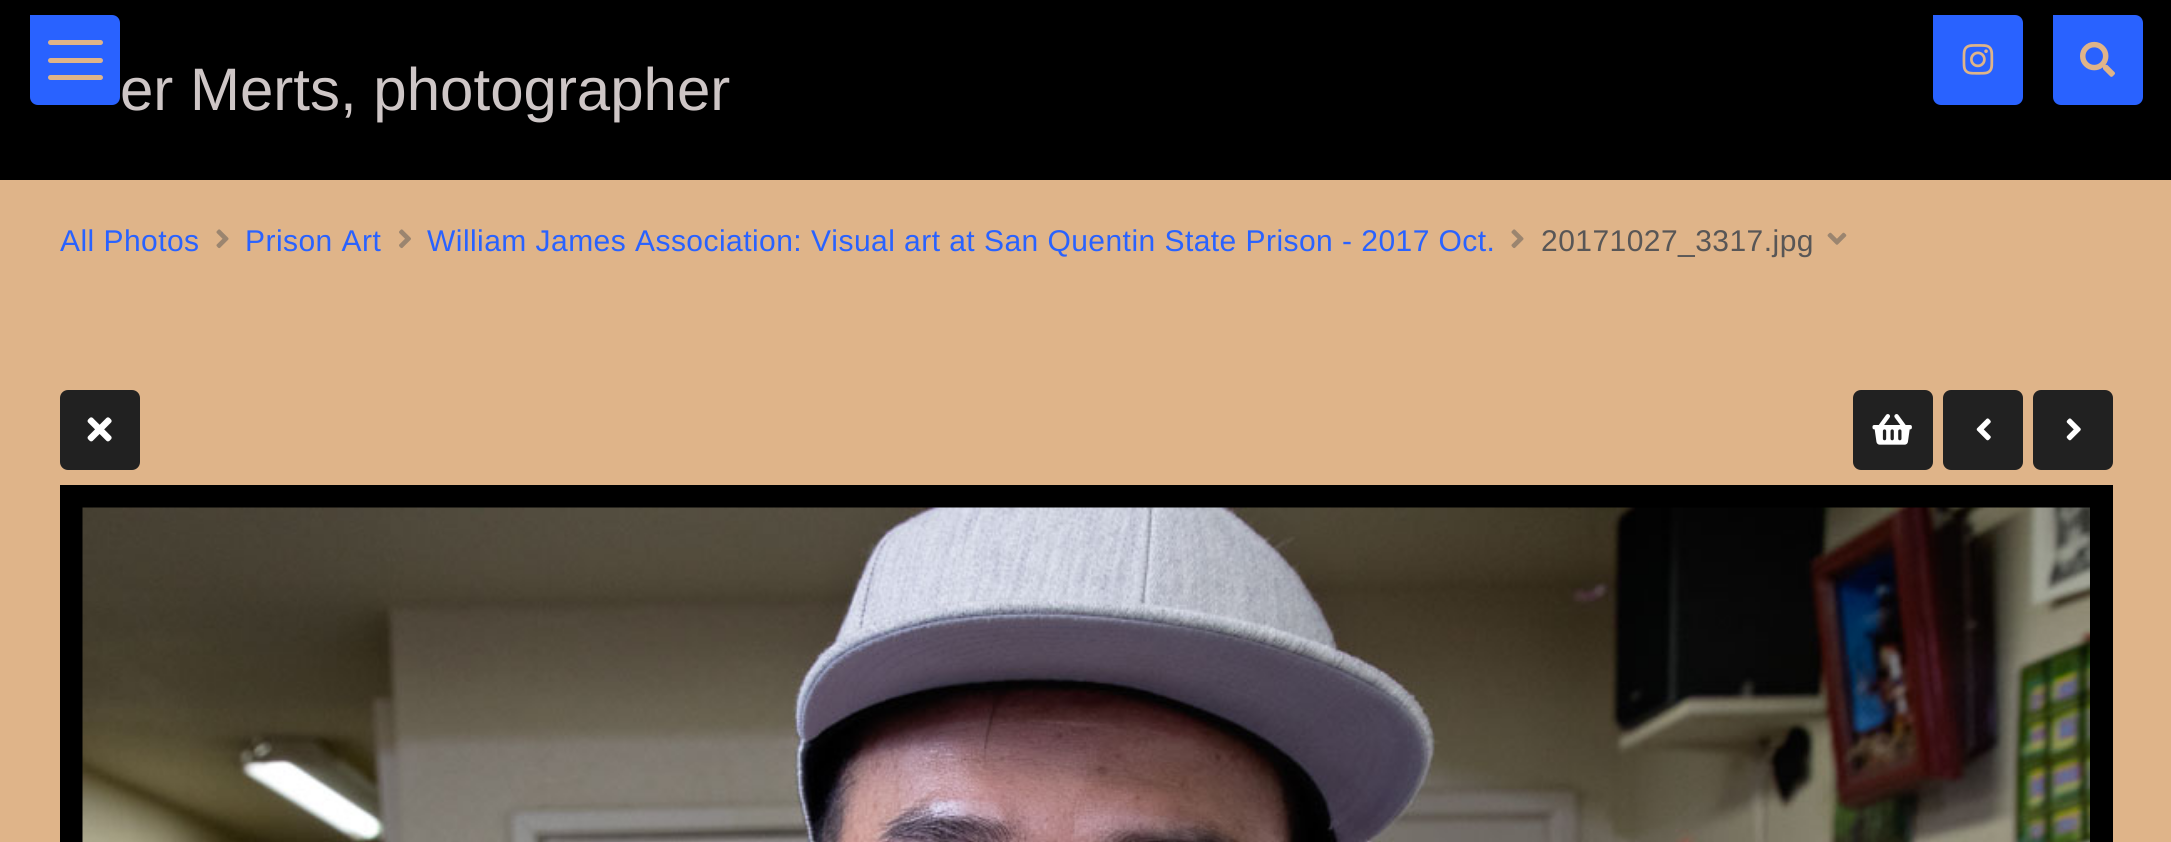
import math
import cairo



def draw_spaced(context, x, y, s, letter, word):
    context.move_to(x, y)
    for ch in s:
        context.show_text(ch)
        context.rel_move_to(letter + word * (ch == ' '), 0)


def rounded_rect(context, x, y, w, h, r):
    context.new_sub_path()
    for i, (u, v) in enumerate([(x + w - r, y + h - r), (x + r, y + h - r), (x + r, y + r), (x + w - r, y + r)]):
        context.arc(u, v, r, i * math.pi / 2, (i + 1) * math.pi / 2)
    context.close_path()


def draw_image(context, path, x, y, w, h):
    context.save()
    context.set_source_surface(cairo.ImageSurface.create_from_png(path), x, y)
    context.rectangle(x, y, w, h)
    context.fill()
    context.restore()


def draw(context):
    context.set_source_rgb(223 / 255, 180 / 255, 137 / 255)
    context.paint()
    context.set_source_rgb(0, 0, 0)
    context.rectangle(0, 0, 2171, 180)
    context.fill()
    context.set_source_rgb(41 / 255, 98 / 255, 1)
    context.new_path()
    context.move_to(30, 15)
    context.line_to(112, 15)
    context.curve_to(116.5, 15, 120, 18.5, 120, 23)
    context.line_to(120, 97)
    context.curve_to(120, 101.5, 116.5, 105, 112, 105)
    context.line_to(38, 105)
    context.curve_to(33.5, 105, 30, 101.5, 30, 97)
    context.close_path()
    context.fill()
    context.set_source_rgb(223 / 255, 180 / 255, 137 / 255)
    rounded_rect(context, 48, 40, 55, 5, 2.5)
    context.fill()
    rounded_rect(context, 48, 58, 55, 5, 2.5)
    context.fill()
    rounded_rect(context, 48, 75, 55, 5, 2.5)
    context.fill()
    context.set_source_rgb(41 / 255, 98 / 255, 1)
    context.new_path()
    context.move_to(1933, 15)
    context.line_to(2015, 15)
    context.curve_to(2019.5, 15, 2023, 18.5, 2023, 23)
    context.line_to(2023, 97)
    context.curve_to(2023, 101.5, 2019.5, 105, 2015, 105)
    context.line_to(1941, 105)
    context.curve_to(1936.5, 105, 1933, 101.5, 1933, 97)
    context.close_path()
    context.fill()
    draw_image(context, "images/1.png", 1962, 44, 32, 31)
    context.new_path()
    context.move_to(2053, 15)
    context.line_to(2135, 15)
    context.curve_to(2139.5, 15, 2143, 18.5, 2143, 23)
    context.line_to(2143, 97)
    context.curve_to(2143, 101.5, 2139.5, 105, 2135, 105)
    context.line_to(2061, 105)
    context.curve_to(2056.5, 105, 2053, 101.5, 2053, 97)
    context.close_path()
    context.fill()
    draw_image(context, "images/2.png", 2080, 41, 35, 36)
    draw_image(context, "images/3.png", 216, 229, 13, 20)
    draw_image(context, "images/4.png", 399, 229, 12, 20)
    draw_image(context, "images/3.png", 1511, 229, 13, 20)
    draw_image(context, "images/5.png", 1827, 232, 20, 13)
    context.set_source_rgb(33 / 255, 33 / 255, 33 / 255)
    rounded_rect(context, 60, 390, 80, 80, 8)
    context.fill()
    draw_image(context, "images/6.png", 87, 417, 25, 25)
    rounded_rect(context, 1853, 390, 80, 80, 8)
    context.fill()
    draw_image(context, "images/7.png", 1872, 414, 40, 31)
    rounded_rect(context, 1943, 390, 80, 80, 8)
    context.fill()
    draw_image(context, "images/8.png", 1976, 418, 15, 23)
    rounded_rect(context, 2033, 390, 80, 80, 8)
    context.fill()
    draw_image(context, "images/9.png", 2066, 418, 15, 23)
    context.rectangle(71.5, 496.5, 2030, 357)
    context.set_source_rgb(0, 0, 0)
    context.set_line_width(23)
    context.stroke()
    draw_image(context, "images/10.png", 82, 507, 2008, 335)
    context.select_font_face("Liberation Sans")
    context.set_font_size(60)
    context.set_source_rgb(206 / 255, 198 / 255, 198 / 255)
    context.move_to(120, 110)
    context.show_text("er Merts, photographer")
    context.set_font_size(30)
    context.set_source_rgb(41 / 255, 98 / 255, 1)
    draw_spaced(context, 60, 251, "All Photos", 0.45, 0)
    draw_spaced(context, 245, 251, "Prison Art", 0.45, 0)
    draw_spaced(context, 427, 251, "William James Association: Visual art at San Quentin State Prison - 2017 Oct.", 0.45, 0)
    context.set_source_rgb(88 / 255, 86 / 255, 86 / 255)
    draw_spaced(context, 1541, 251, "20171027_3317.jpg", 0.45, 0)


surface = cairo.ImageSurface(cairo.Format.RGB24, 2171, 842)
context = cairo.Context(surface)
options = cairo.FontOptions()
options.set_hint_metrics(cairo.HintMetrics.OFF)
options.set_hint_style(cairo.HintStyle.NONE)
context.set_font_options(options)
context.set_miter_limit(4)
draw(context)
surface.write_to_png("out.png")
